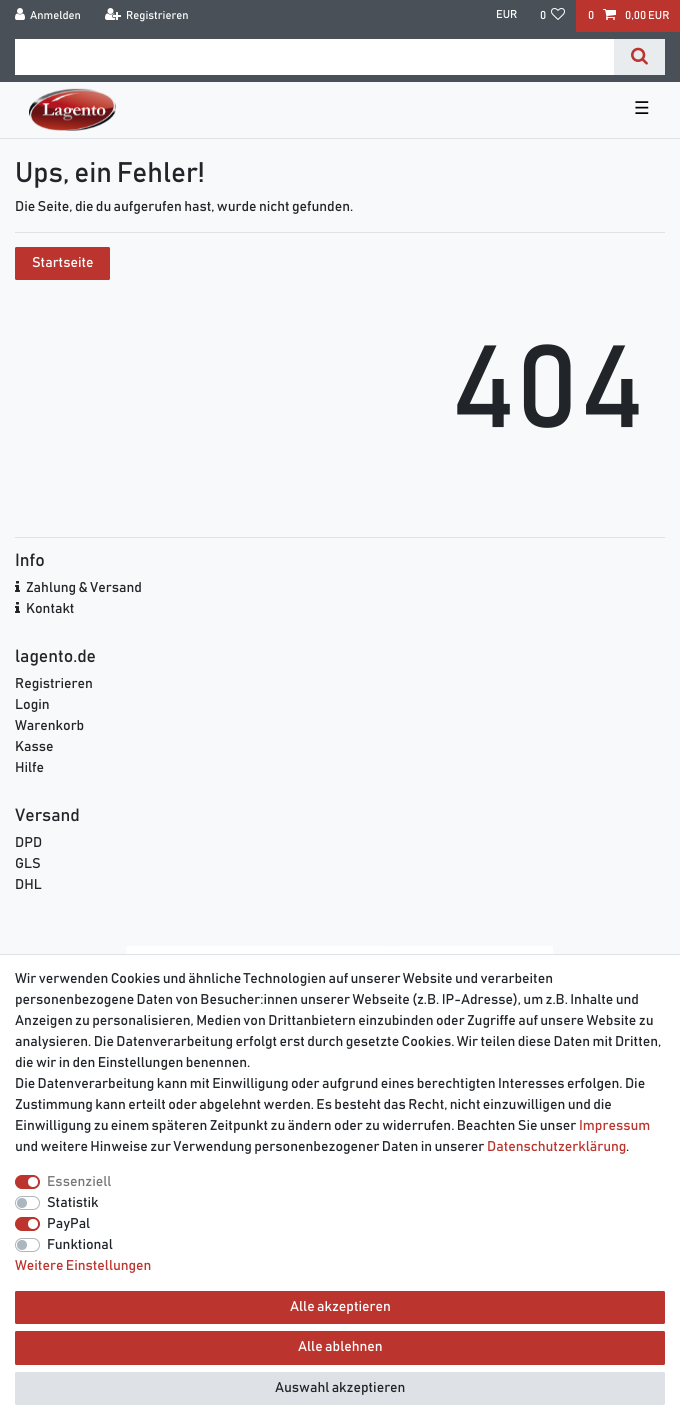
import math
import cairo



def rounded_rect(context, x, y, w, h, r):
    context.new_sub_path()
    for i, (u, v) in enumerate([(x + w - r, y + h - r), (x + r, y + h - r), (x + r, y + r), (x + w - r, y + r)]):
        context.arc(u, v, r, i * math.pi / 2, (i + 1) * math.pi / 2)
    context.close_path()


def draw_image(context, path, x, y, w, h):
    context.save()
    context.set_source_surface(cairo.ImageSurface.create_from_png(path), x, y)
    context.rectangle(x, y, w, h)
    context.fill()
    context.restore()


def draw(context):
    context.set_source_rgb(248 / 255, 249 / 255, 250 / 255)
    context.paint()
    context.set_source_rgb(73 / 255, 80 / 255, 87 / 255)
    context.rectangle(0, 0, 680, 82)
    context.fill()
    draw_image(context, "images/1.png", 15, 8, 10, 12)
    draw_image(context, "images/2.png", 105, 8, 16, 12)
    draw_image(context, "images/3.png", 551, 8, 14, 12)
    context.set_source_rgb(187 / 255, 52 / 255, 46 / 255)
    context.rectangle(576, 0, 104, 32)
    context.fill()
    draw_image(context, "images/4.png", 603, 9, 13, 11)
    context.set_source_rgb(1, 1, 1)
    context.rectangle(15, 39, 599, 36)
    context.fill()
    context.set_source_rgb(233 / 255, 236 / 255, 239 / 255)
    context.rectangle(614, 39, 51, 36)
    context.fill()
    draw_image(context, "images/5.png", 631, 47, 17, 18)
    context.set_source_rgb(222 / 255, 226 / 255, 230 / 255)
    context.rectangle(0, 138, 680, 1)
    context.fill()
    draw_image(context, "images/6.png", 29, 88, 87, 43)
    context.rectangle(15, 232, 650, 1)
    context.fill()
    context.set_source_rgb(187 / 255, 52 / 255, 46 / 255)
    rounded_rect(context, 15.5, 247.5, 94, 32, 1)
    context.fill_preserve()
    context.set_line_width(1)
    context.stroke()
    context.set_source_rgb(222 / 255, 226 / 255, 230 / 255)
    context.rectangle(15, 537, 650, 1)
    context.fill()
    draw_image(context, "images/7.png", 15, 581, 5, 11)
    draw_image(context, "images/7.png", 15, 602, 5, 11)
    draw_image(context, "images/8.png", 126, 946, 427, 8)
    context.set_source_rgb(1, 1, 1)
    context.rectangle(0, 955, 680, 471)
    context.fill()
    context.set_source_rgb(222 / 255, 226 / 255, 230 / 255)
    context.rectangle(0, 954, 680, 1)
    context.fill()
    context.set_source_rgb(187 / 255, 52 / 255, 46 / 255)
    rounded_rect(context, 15.5, 1175.5, 24, 13, 6.5)
    context.fill_preserve()
    context.stroke()
    context.set_source_rgb(1, 1, 1)
    context.arc(33, 1182, 5, 0, 2 * math.pi)
    context.fill()
    rounded_rect(context, 15.5, 1196.5, 24, 13, 6.5)
    context.set_source_rgb(173 / 255, 181 / 255, 189 / 255)
    context.stroke()
    context.arc(22, 1203, 5, 0, 2 * math.pi)
    context.fill()
    context.set_source_rgb(187 / 255, 52 / 255, 46 / 255)
    rounded_rect(context, 15.5, 1217.5, 24, 13, 6.5)
    context.fill_preserve()
    context.stroke()
    context.set_source_rgb(1, 1, 1)
    context.arc(33, 1224, 5, 0, 2 * math.pi)
    context.fill()
    rounded_rect(context, 15.5, 1238.5, 24, 13, 6.5)
    context.set_source_rgb(173 / 255, 181 / 255, 189 / 255)
    context.stroke()
    context.arc(22, 1245, 5, 0, 2 * math.pi)
    context.fill()
    context.set_source_rgb(187 / 255, 52 / 255, 46 / 255)
    rounded_rect(context, 15.5, 1291.5, 649, 32, 1)
    context.fill_preserve()
    context.stroke()
    rounded_rect(context, 15.5, 1331.5, 649, 33, 1)
    context.fill_preserve()
    context.stroke()
    context.set_source_rgb(222 / 255, 226 / 255, 230 / 255)
    rounded_rect(context, 15.5, 1372.5, 649, 32, 1)
    context.fill_preserve()
    context.stroke()
    context.select_font_face("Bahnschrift")
    context.set_font_size(11.25)
    context.set_source_rgb(1, 1, 1)
    context.move_to(30, 19)
    context.show_text("Anmelden")
    context.move_to(126, 19)
    context.show_text("Registrieren")
    context.move_to(496, 18)
    context.show_text("EUR")
    context.move_to(540, 19)
    context.show_text("0")
    context.move_to(588, 19)
    context.show_text("0")
    context.move_to(625, 19)
    context.show_text("0,00 EUR")
    context.select_font_face("DejaVu Sans")
    context.set_font_size(17.5)
    context.set_source_rgb(0, 0, 0)
    context.move_to(634, 114)
    context.show_text("☰")
    context.select_font_face("Bahnschrift")
    context.set_font_size(28)
    context.set_source_rgb(33 / 255, 37 / 255, 41 / 255)
    context.move_to(15, 182)
    context.show_text("Ups, ein Fehler!")
    context.set_font_size(14)
    context.move_to(15, 211)
    context.show_text("Die Seite, die du aufgerufen hast, wurde nicht gefunden.")
    context.set_source_rgb(1, 1, 1)
    context.move_to(32, 267)
    context.show_text("Startseite")
    context.set_font_size(115)
    context.set_source_rgb(33 / 255, 37 / 255, 41 / 255)
    context.move_to(450, 427)
    context.show_text("404")
    context.set_font_size(17.5)
    context.move_to(15, 566)
    context.show_text("Info")
    context.set_font_size(14)
    context.move_to(26, 592)
    context.show_text("Zahlung & Versand")
    context.move_to(26, 613)
    context.show_text("Kontakt")
    context.set_font_size(17.5)
    context.move_to(15, 662)
    context.show_text("lagento.de")
    context.set_font_size(14)
    context.move_to(15, 688)
    context.show_text("Registrieren")
    context.move_to(15, 709)
    context.show_text("Login")
    context.move_to(15, 730)
    context.show_text("Warenkorb")
    context.move_to(15, 751)
    context.show_text("Kasse")
    context.move_to(15, 772)
    context.show_text("Hilfe")
    context.set_font_size(17.5)
    context.move_to(15, 821)
    context.show_text("Versand")
    context.set_font_size(14)
    context.move_to(15, 847)
    context.show_text("DPD")
    context.move_to(15, 868)
    context.show_text("GLS")
    context.move_to(15, 889)
    context.show_text("DHL")
    context.move_to(15, 983)
    context.show_text("Wir verwenden Cookies und ähnliche Technologien auf unserer Website und verarbeiten")
    context.move_to(15, 1004)
    context.show_text("personenbezogene Daten von Besucher:innen unserer Webseite (z.B. IP-Adresse), um z.B. Inhalte und")
    context.move_to(15, 1025)
    context.show_text("Anzeigen zu personalisieren, Medien von Drittanbietern einzubinden oder Zugriffe auf unsere Website zu")
    context.move_to(15, 1046)
    context.show_text("analysieren. Die Datenverarbeitung erfolgt erst durch gesetzte Cookies. Wir teilen diese Daten mit Dritten,")
    context.move_to(15, 1067)
    context.show_text("die wir in den Einstellungen benennen.")
    context.move_to(15, 1088)
    context.show_text("Die Datenverarbeitung kann mit Einwilligung oder aufgrund eines berechtigten Interesses erfolgen. Die")
    context.move_to(15, 1109)
    context.show_text("Zustimmung kann erteilt oder abgelehnt werden. Es besteht das Recht, nicht einzuwilligen und die")
    context.move_to(15, 1130)
    context.show_text("Einwilligung zu einem späteren Zeitpunkt zu ändern oder zu widerrufen. Beachten Sie unser")
    context.set_source_rgb(187 / 255, 52 / 255, 46 / 255)
    context.move_to(579, 1130)
    context.show_text("Impressum")
    context.set_source_rgb(33 / 255, 37 / 255, 41 / 255)
    context.move_to(15, 1151)
    context.show_text("und weitere Hinweise zur Verwendung personenbezogener Daten in unserer")
    context.set_source_rgb(187 / 255, 52 / 255, 46 / 255)
    context.move_to(487, 1151)
    context.show_text("Datenschutzerklärung")
    context.set_source_rgb(33 / 255, 37 / 255, 41 / 255)
    context.move_to(626, 1151)
    context.show_text(".")
    context.set_source_rgb(118 / 255, 118 / 255, 118 / 255)
    context.move_to(47, 1186)
    context.show_text("Essenziell")
    context.set_source_rgb(33 / 255, 37 / 255, 41 / 255)
    context.move_to(47, 1207)
    context.show_text("Statistik")
    context.move_to(47, 1228)
    context.show_text("PayPal")
    context.move_to(47, 1249)
    context.show_text("Funktional")
    context.set_source_rgb(187 / 255, 52 / 255, 46 / 255)
    context.move_to(15, 1270)
    context.show_text("Weitere Einstellungen")
    context.set_source_rgb(1, 1, 1)
    context.move_to(290, 1311)
    context.show_text("Alle akzeptieren")
    context.move_to(298, 1351)
    context.show_text("Alle ablehnen")
    context.set_source_rgb(33 / 255, 37 / 255, 41 / 255)
    context.move_to(275, 1392)
    context.show_text("Auswahl akzeptieren")


surface = cairo.ImageSurface(cairo.Format.RGB24, 680, 1426)
context = cairo.Context(surface)
options = cairo.FontOptions()
options.set_hint_metrics(cairo.HintMetrics.OFF)
options.set_hint_style(cairo.HintStyle.NONE)
context.set_font_options(options)
context.set_miter_limit(4)
draw(context)
surface.write_to_png("out.png")
